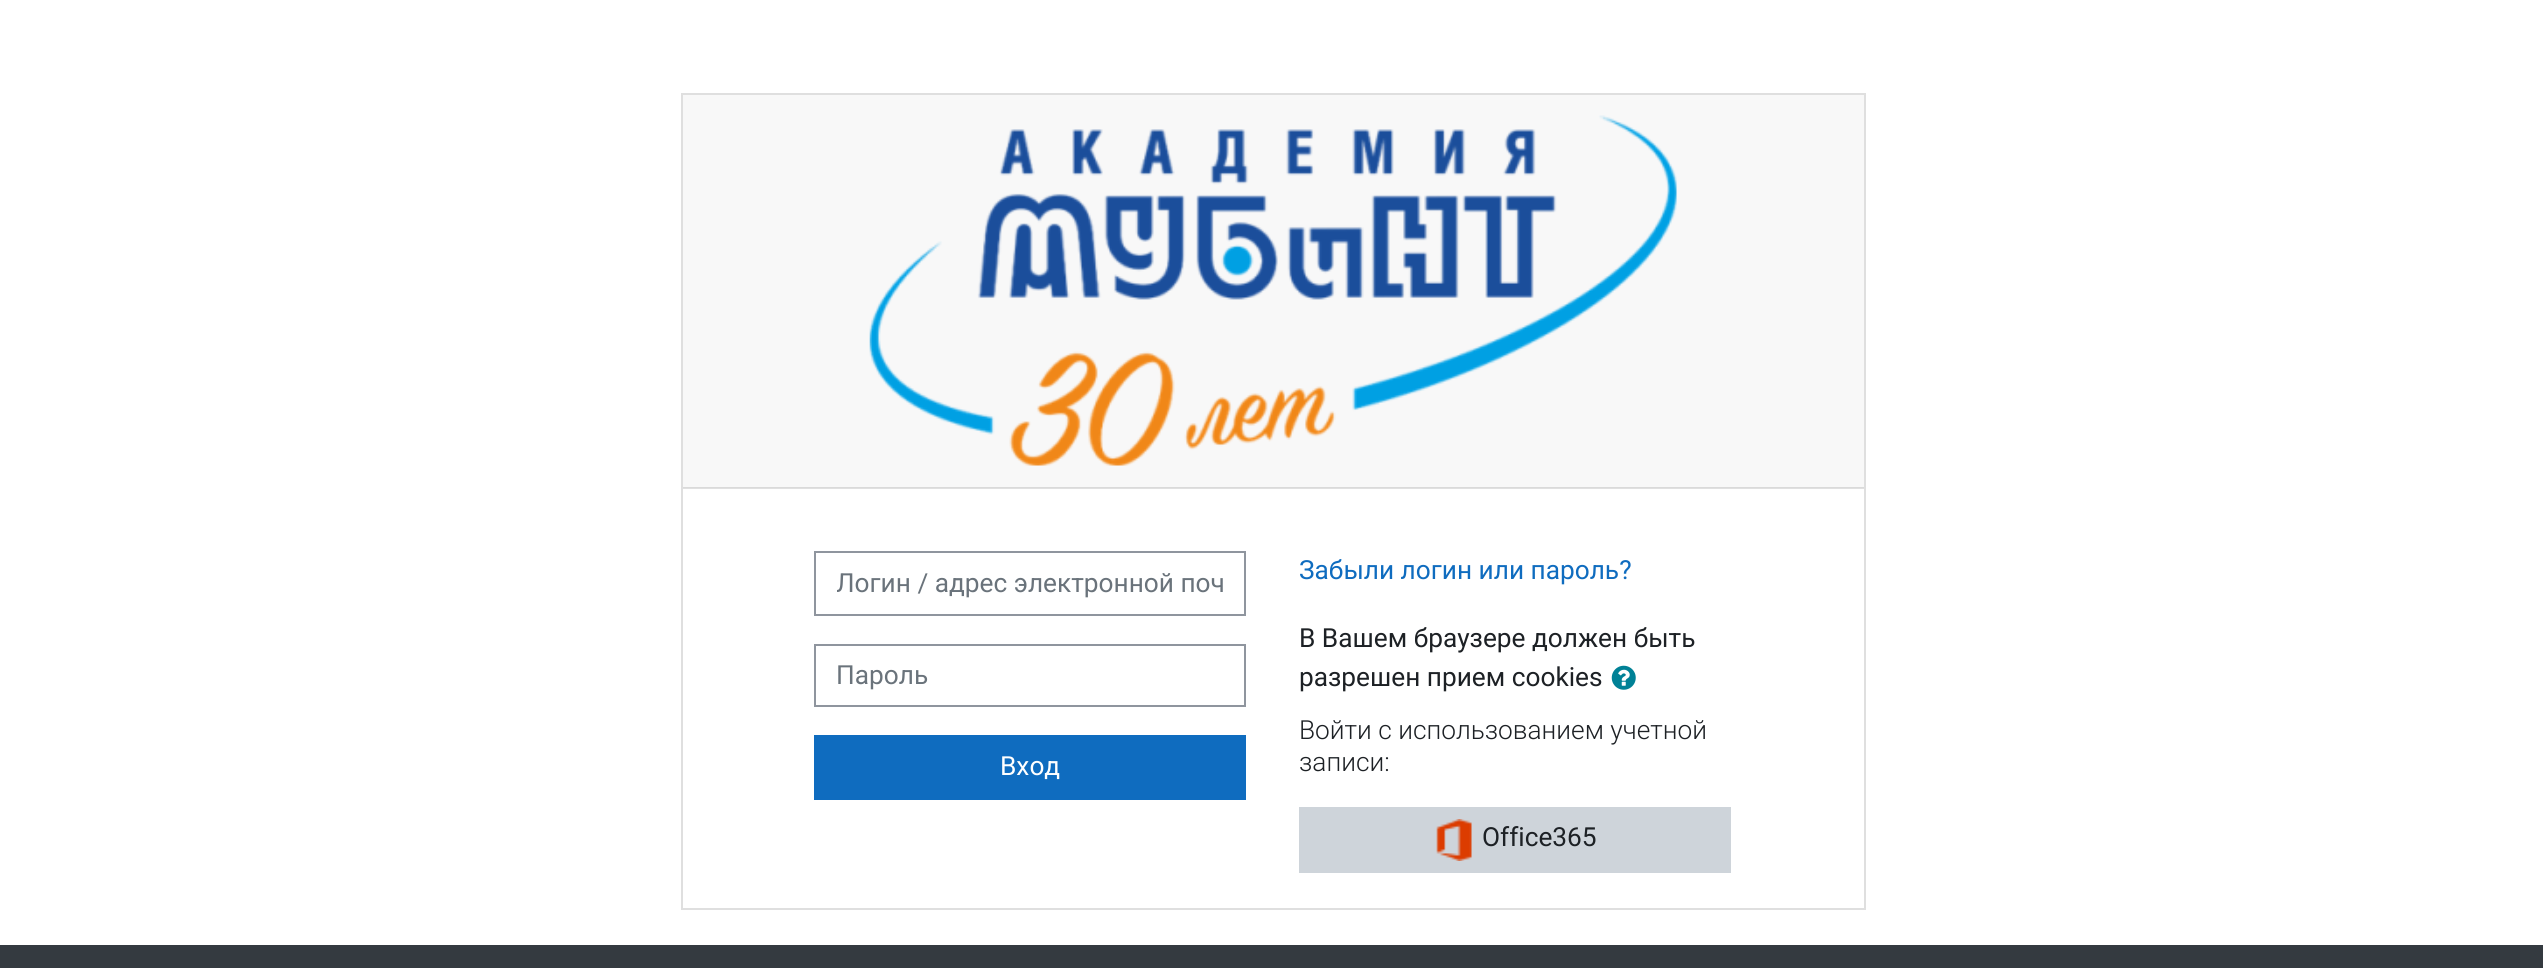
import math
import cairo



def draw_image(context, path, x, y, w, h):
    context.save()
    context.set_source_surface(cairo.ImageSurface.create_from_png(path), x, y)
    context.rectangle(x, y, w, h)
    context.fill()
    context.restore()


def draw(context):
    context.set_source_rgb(1, 1, 1)
    context.paint()
    context.set_source_rgb(224 / 255, 224 / 255, 224 / 255)
    context.rectangle(683, 488, 1181, 1)
    context.fill()
    context.rectangle(682, 94, 1183, 815)
    context.set_source_rgb(223 / 255, 223 / 255, 223 / 255)
    context.stroke()
    context.set_source_rgb(248 / 255, 248 / 255, 248 / 255)
    context.rectangle(683, 95, 1181, 392)
    context.fill()
    context.set_source_rgb(218 / 255, 218 / 255, 218 / 255)
    context.rectangle(683, 487, 1181, 1)
    context.fill()
    draw_image(context, "images/1.png", 869, 115, 808, 351)
    context.rectangle(815, 552, 430, 63)
    context.set_source_rgb(143 / 255, 149 / 255, 158 / 255)
    context.stroke()
    context.rectangle(815, 645, 430, 61)
    context.stroke()
    context.set_source_rgb(15 / 255, 108 / 255, 191 / 255)
    context.rectangle(814, 735, 432, 65)
    context.fill()
    draw_image(context, "images/2.png", 1611, 665, 25, 25)
    context.set_source_rgb(206 / 255, 212 / 255, 218 / 255)
    context.rectangle(1299, 807, 432, 66)
    context.fill()
    draw_image(context, "images/3.png", 1436, 819, 36, 42)
    context.set_source_rgb(52 / 255, 58 / 255, 64 / 255)
    context.rectangle(0, 945, 2543, 23)
    context.fill()
    context.save()
    context.rectangle(837, 567, 386, 32)
    context.clip()
    context.select_font_face("Roboto")
    context.set_font_size(26.25)
    context.set_source_rgb(106 / 255, 115 / 255, 123 / 255)
    context.move_to(836, 592)
    context.show_text("Логин / адрес электронной поч")
    context.restore()
    context.select_font_face("Roboto")
    context.set_font_size(26.25)
    context.set_source_rgb(106 / 255, 115 / 255, 123 / 255)
    context.move_to(836, 684)
    context.show_text("Пароль")
    context.set_source_rgb(1, 1, 1)
    context.move_to(1000, 775)
    context.show_text("Вход")
    context.set_source_rgb(15 / 255, 108 / 255, 191 / 255)
    context.move_to(1299, 579)
    context.show_text("Забыли логин или пароль?")
    context.set_source_rgb(29 / 255, 33 / 255, 37 / 255)
    context.move_to(1299, 647)
    context.show_text("В Вашем браузере должен быть")
    context.move_to(1299, 686)
    context.show_text("разрешен прием cookies")
    context.select_font_face("Roboto Light")
    context.move_to(1299, 739)
    context.show_text("Войти с использованием учетной")
    context.move_to(1299, 771)
    context.show_text("записи:")
    context.select_font_face("Roboto")
    context.move_to(1482, 846)
    context.show_text("Office365")


surface = cairo.ImageSurface(cairo.Format.RGB24, 2543, 968)
context = cairo.Context(surface)
options = cairo.FontOptions()
options.set_hint_metrics(cairo.HintMetrics.OFF)
options.set_hint_style(cairo.HintStyle.NONE)
context.set_font_options(options)
context.set_miter_limit(4)
draw(context)
surface.write_to_png("out.png")
